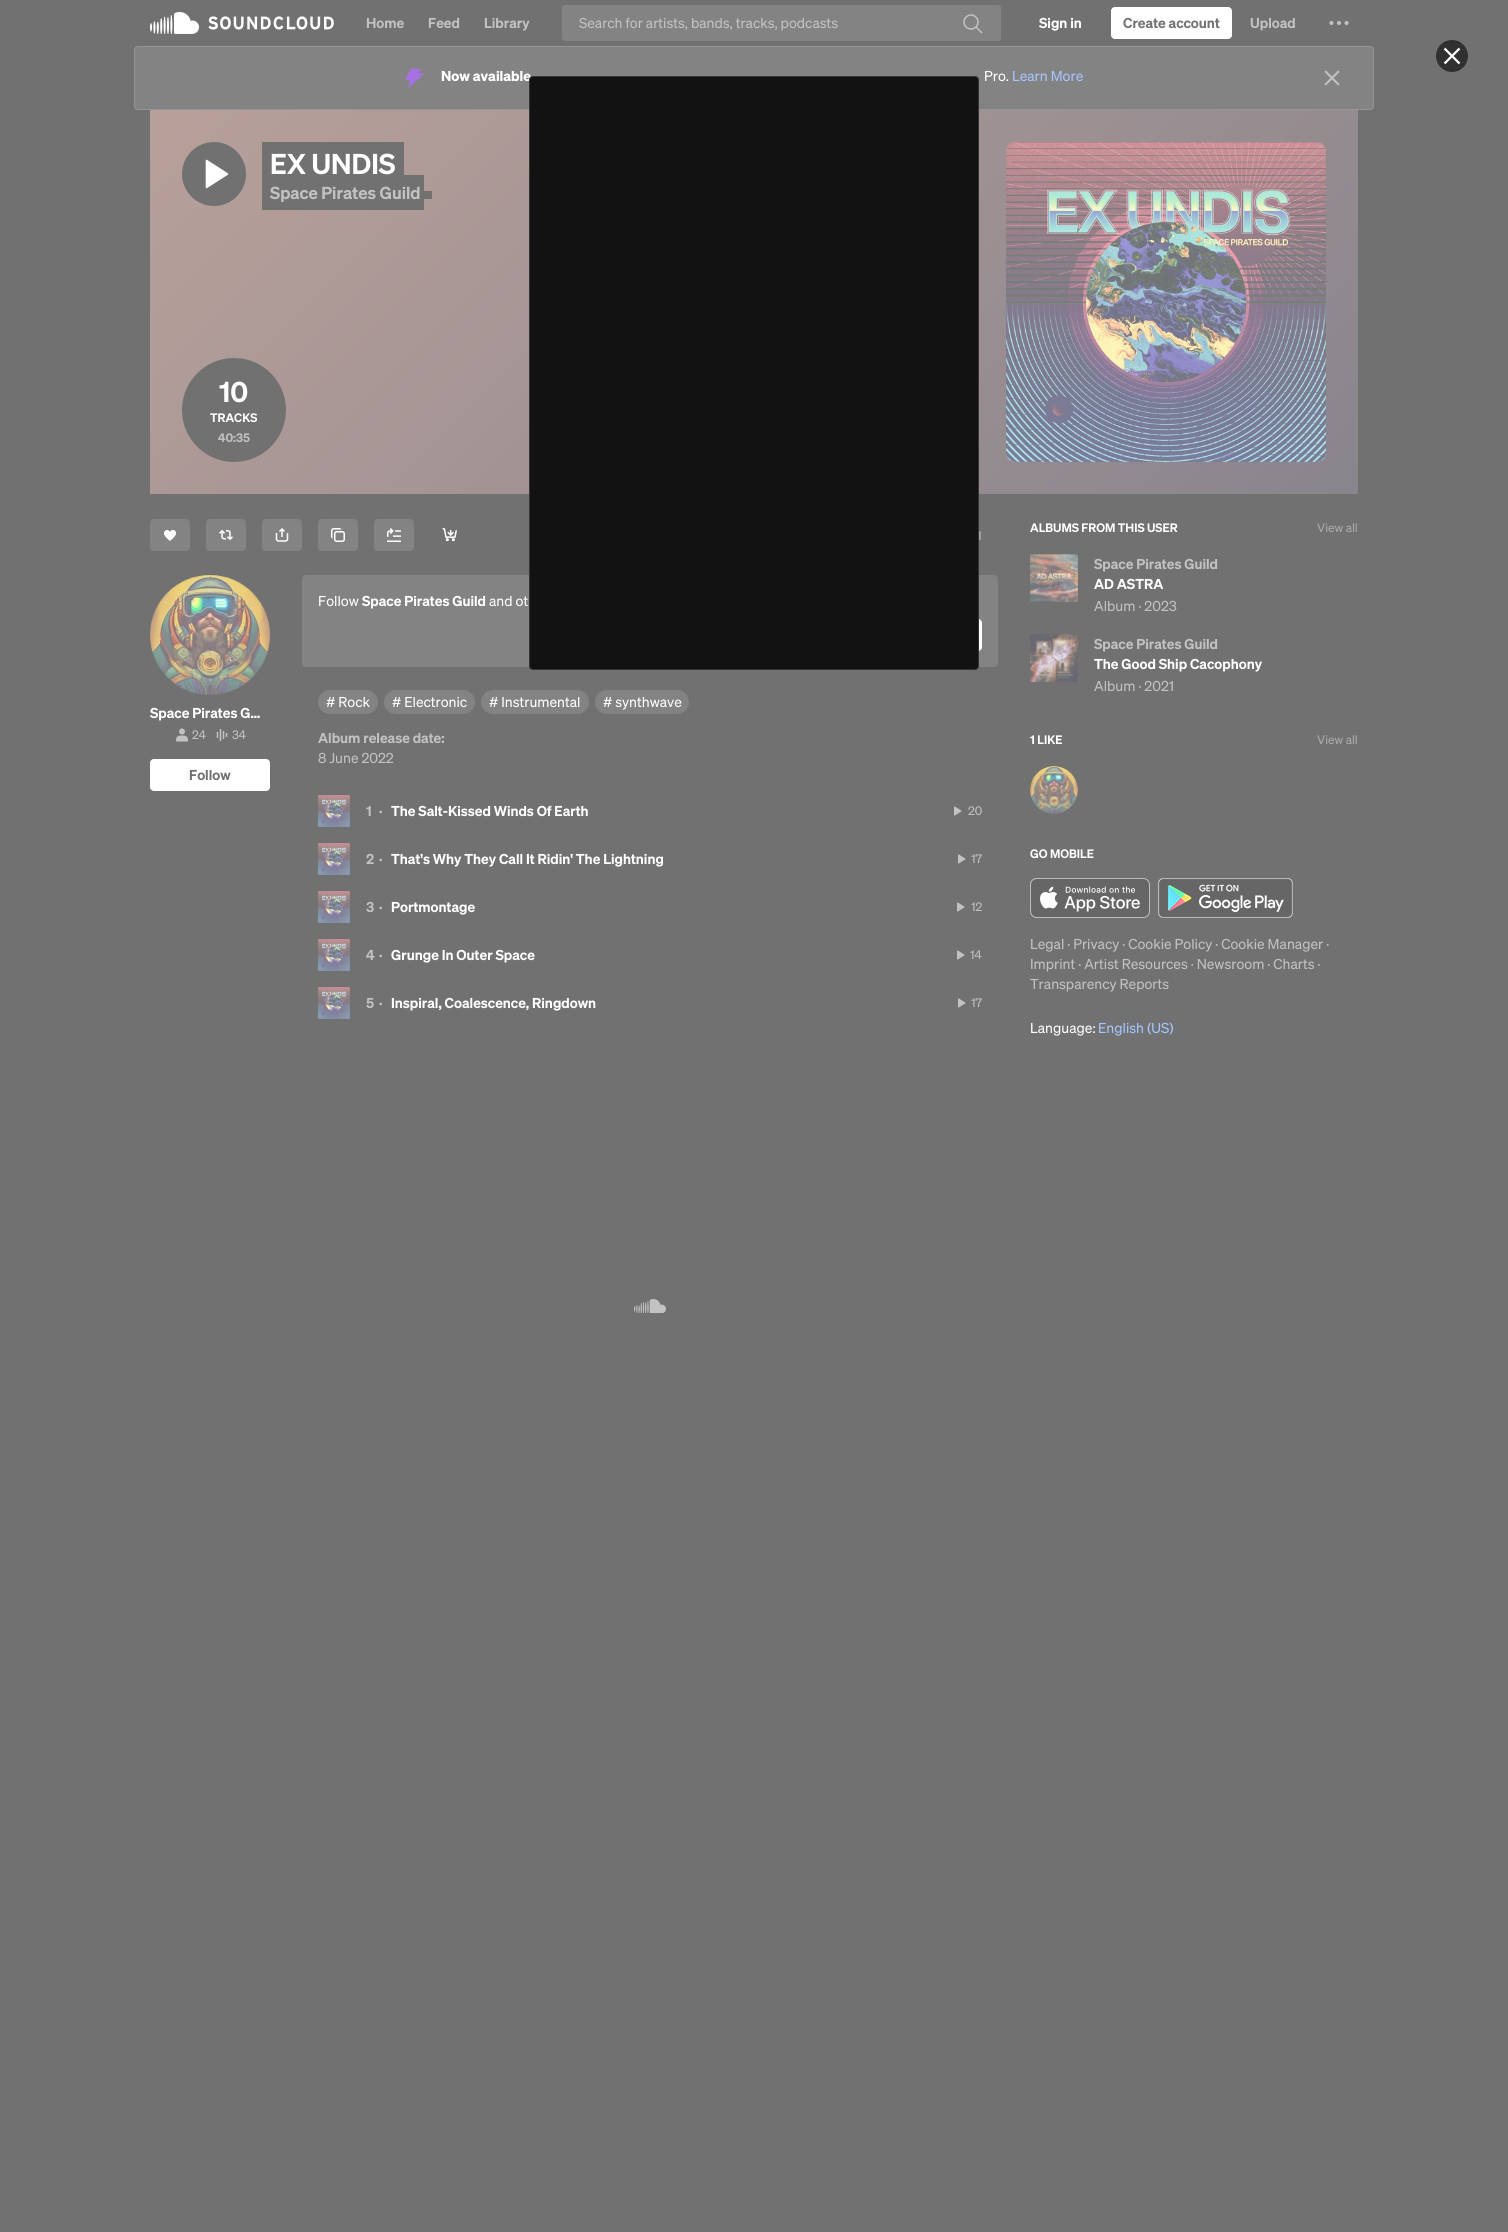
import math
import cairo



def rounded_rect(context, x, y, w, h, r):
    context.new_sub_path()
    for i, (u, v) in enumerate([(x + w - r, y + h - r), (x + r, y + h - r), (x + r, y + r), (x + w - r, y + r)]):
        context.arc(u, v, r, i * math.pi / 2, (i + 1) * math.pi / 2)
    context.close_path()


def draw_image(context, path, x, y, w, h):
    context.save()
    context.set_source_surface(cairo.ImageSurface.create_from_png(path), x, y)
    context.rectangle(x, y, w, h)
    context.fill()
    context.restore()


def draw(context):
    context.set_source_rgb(113 / 255, 113 / 255, 113 / 255)
    context.paint()
    draw_image(context, "images/1.png", 150, 12, 184, 22)
    context.set_source_rgb(131 / 255, 131 / 255, 131 / 255)
    rounded_rect(context, 562, 5, 439, 36, 3)
    context.fill()
    draw_image(context, "images/2.png", 963, 14, 20, 20)
    context.set_source_rgb(1, 1, 1)
    rounded_rect(context, 1111, 7, 121, 32, 4)
    context.fill()
    draw_image(context, "images/3.png", 1329, 21, 20, 4)
    context.set_source_rgb(131 / 255, 131 / 255, 131 / 255)
    rounded_rect(context, 134, 46, 1240, 64, 4)
    context.fill()
    rounded_rect(context, 134.5, 46.5, 1239, 63, 3.5)
    context.set_source_rgba(1, 1, 1, 0.15)
    context.set_line_width(1)
    context.stroke()
    draw_image(context, "images/4.png", 405, 68, 20, 20)
    draw_image(context, "images/5.png", 1324, 70, 16, 16)
    gradient = cairo.LinearGradient(356, -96, 1152, 700)
    gradient.add_color_stop_rgba(0, 184 / 255, 160 / 255, 154 / 255, 1)
    gradient.add_color_stop_rgba(1, 137 / 255, 133 / 255, 141 / 255, 1)
    context.set_source(gradient)
    context.rectangle(150, 110, 1208, 384)
    context.fill()
    context.set_source_rgb(113 / 255, 113 / 255, 113 / 255)
    context.arc(214, 174, 32, 0, 2 * math.pi)
    context.fill()
    draw_image(context, "images/6.png", 205, 159, 24, 30)
    context.rectangle(262, 142, 142, 33)
    context.fill()
    context.rectangle(262, 175, 162, 35)
    context.fill()
    context.rectangle(424, 191, 8, 8)
    context.fill()
    gradient = cairo.LinearGradient(1006, 142, 1326, 462)
    gradient.add_color_stop_rgba(0, 240 / 255, 181 / 255, 168 / 255, 1)
    gradient.add_color_stop_rgba(1, 169 / 255, 190 / 255, 196 / 255, 1)
    context.set_source(gradient)
    rounded_rect(context, 1006, 142, 320, 320, 10)
    context.fill()
    draw_image(context, "images/7.png", 1006, 142, 320, 320)
    rounded_rect(context, 1006.5, 142.5, 319, 319, 9.5)
    context.set_source_rgba(113 / 255, 113 / 255, 113 / 255, 0.1)
    context.stroke()
    context.set_source_rgb(113 / 255, 113 / 255, 113 / 255)
    context.arc(234, 410, 52, 0, 2 * math.pi)
    context.fill()
    context.set_source_rgb(131 / 255, 131 / 255, 131 / 255)
    rounded_rect(context, 150, 519, 40, 32, 4)
    context.fill()
    draw_image(context, "images/8.png", 164, 530, 12, 11)
    rounded_rect(context, 206, 519, 40, 32, 4)
    context.fill()
    draw_image(context, "images/9.png", 219, 529, 14, 12)
    rounded_rect(context, 262, 519, 40, 32, 4)
    context.fill()
    draw_image(context, "images/10.png", 275, 528, 14, 14)
    rounded_rect(context, 318, 519, 40, 32, 4)
    context.fill()
    draw_image(context, "images/11.png", 331, 528, 14, 14)
    rounded_rect(context, 374, 519, 40, 32, 4)
    context.fill()
    draw_image(context, "images/12.png", 387, 528, 14, 14)
    draw_image(context, "images/13.png", 442, 528, 15, 14)
    draw_image(context, "images/14.png", 150, 575, 120, 120)
    context.arc(210, 635, 59.5, 0, 2 * math.pi)
    context.set_source_rgba(113 / 255, 113 / 255, 113 / 255, 0.1)
    context.stroke()
    draw_image(context, "images/15.png", 176, 728, 12, 14)
    draw_image(context, "images/16.png", 216, 729, 12, 12)
    context.set_source_rgb(1, 1, 1)
    rounded_rect(context, 150, 759, 120, 32, 4)
    context.fill()
    context.set_source_rgb(131 / 255, 131 / 255, 131 / 255)
    rounded_rect(context, 302, 575, 696, 92, 4)
    context.fill()
    context.set_source_rgb(1, 1, 1)
    rounded_rect(context, 770, 619, 212, 32, 4)
    context.fill()
    context.set_source_rgb(131 / 255, 131 / 255, 131 / 255)
    rounded_rect(context, 318, 690, 60, 24, 12)
    context.fill()
    rounded_rect(context, 384, 690, 91, 24, 12)
    context.fill()
    rounded_rect(context, 481, 690, 108, 24, 12)
    context.fill()
    rounded_rect(context, 595, 690, 94, 24, 12)
    context.fill()
    draw_image(context, "images/17.png", 318, 795, 32, 32)
    context.rectangle(318.5, 795.5, 31, 31)
    context.set_source_rgba(113 / 255, 113 / 255, 113 / 255, 0.1)
    context.stroke()
    draw_image(context, "images/18.png", 954, 806, 8, 10)
    draw_image(context, "images/19.png", 318, 843, 32, 32)
    context.rectangle(318.5, 843.5, 31, 31)
    context.stroke()
    draw_image(context, "images/18.png", 958, 854, 8, 10)
    draw_image(context, "images/20.png", 318, 891, 32, 32)
    context.rectangle(318.5, 891.5, 31, 31)
    context.stroke()
    draw_image(context, "images/18.png", 957, 902, 8, 10)
    draw_image(context, "images/21.png", 318, 939, 32, 32)
    context.rectangle(318.5, 939.5, 31, 31)
    context.stroke()
    draw_image(context, "images/18.png", 957, 950, 8, 10)
    draw_image(context, "images/20.png", 318, 987, 32, 32)
    context.rectangle(318.5, 987.5, 31, 31)
    context.stroke()
    draw_image(context, "images/18.png", 958, 998, 8, 10)
    draw_image(context, "images/22.png", 634, 1299, 32, 14)
    draw_image(context, "images/23.png", 1030, 554, 48, 48)
    context.rectangle(1030.5, 554.5, 47, 47)
    context.stroke()
    draw_image(context, "images/24.png", 1030, 634, 48, 48)
    context.rectangle(1030.5, 634.5, 47, 47)
    context.stroke()
    draw_image(context, "images/25.png", 1030, 766, 48, 48)
    context.arc(1054, 790, 25, 0, 2 * math.pi)
    context.set_source_rgb(113 / 255, 113 / 255, 113 / 255)
    context.set_line_width(2)
    context.stroke()
    draw_image(context, "images/26.png", 1030, 878, 120, 40)
    draw_image(context, "images/27.png", 1158, 878, 135, 40)
    context.set_source_rgb(48 / 255, 48 / 255, 48 / 255)
    context.arc(1452, 56, 16, 0, 2 * math.pi)
    context.fill()
    draw_image(context, "images/28.png", 1443, 47, 18, 18)
    context.select_font_face("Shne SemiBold")
    context.set_font_size(14)
    context.set_source_rgb(194 / 255, 194 / 255, 194 / 255)
    context.move_to(366, 28)
    context.show_text("Home")
    context.move_to(428, 28)
    context.show_text("Feed")
    context.move_to(484, 28)
    context.show_text("Library")
    context.select_font_face("Shne")
    context.move_to(579, 28)
    context.show_text("Search for artists, bands, tracks, podcasts")
    context.select_font_face("Shne SemiBold")
    context.set_source_rgb(1, 1, 1)
    context.move_to(1039, 28)
    context.show_text("Sign in")
    context.set_source_rgb(113 / 255, 113 / 255, 113 / 255)
    context.move_to(1123, 28)
    context.show_text("Create account")
    context.set_source_rgb(194 / 255, 194 / 255, 194 / 255)
    context.move_to(1250, 28)
    context.show_text("Upload")
    context.select_font_face("Shne", cairo.FontSlant.NORMAL, cairo.FontWeight.BOLD)
    context.set_source_rgb(1, 1, 1)
    context.move_to(441, 81)
    context.show_text("Now available")
    context.select_font_face("Shne")
    context.move_to(984, 81)
    context.show_text("Pro.")
    context.set_source_rgb(165 / 255, 197 / 255, 1)
    context.move_to(1012, 81)
    context.show_text("Learn More")
    context.select_font_face("Shne SemiBold")
    context.set_font_size(28)
    context.set_source_rgb(1, 1, 1)
    context.move_to(270, 174)
    context.show_text("EX UNDIS")
    context.set_font_size(17)
    context.set_source_rgb(194 / 255, 194 / 255, 194 / 255)
    context.move_to(270, 199)
    context.show_text("Space Pirates Guild")
    context.set_font_size(28)
    context.set_source_rgb(1, 1, 1)
    context.move_to(219, 402)
    context.show_text("10")
    context.set_font_size(12)
    context.move_to(210, 422)
    context.show_text("TRACKS")
    context.set_source_rgb(194 / 255, 194 / 255, 194 / 255)
    context.move_to(218, 442)
    context.show_text("40:35")
    context.select_font_face("Shne")
    context.move_to(977, 540)
    context.show_text("1")
    context.select_font_face("Shne SemiBold")
    context.set_font_size(14)
    context.set_source_rgb(1, 1, 1)
    context.move_to(150, 718)
    context.show_text("Space Pirates G…")
    context.select_font_face("Shne")
    context.set_font_size(12)
    context.set_source_rgb(194 / 255, 194 / 255, 194 / 255)
    context.move_to(192, 739)
    context.show_text("24")
    context.move_to(232, 739)
    context.show_text("34")
    context.select_font_face("Shne SemiBold")
    context.set_font_size(14)
    context.set_source_rgb(113 / 255, 113 / 255, 113 / 255)
    context.move_to(189, 780)
    context.show_text("Follow")
    context.select_font_face("Shne")
    context.set_source_rgb(1, 1, 1)
    context.move_to(318, 606)
    context.show_text("Follow")
    context.select_font_face("Shne SemiBold")
    context.move_to(362, 606)
    context.show_text("Space Pirates Guild")
    context.select_font_face("Shne")
    context.move_to(489, 606)
    context.show_text("and ot")
    context.move_to(326, 707)
    context.show_text("# Rock")
    context.move_to(392, 707)
    context.show_text("# Electronic")
    context.move_to(489, 707)
    context.show_text("# Instrumental")
    context.move_to(603, 707)
    context.show_text("# synthwave")
    context.select_font_face("Shne SemiBold")
    context.set_source_rgb(194 / 255, 194 / 255, 194 / 255)
    context.move_to(318, 743)
    context.show_text("Album release date:")
    context.select_font_face("Shne")
    context.move_to(318, 763)
    context.show_text("8 June 2022")
    context.select_font_face("Shne SemiBold")
    context.move_to(366, 816)
    context.show_text("1")
    context.move_to(379, 816)
    context.show_text("·")
    context.set_source_rgb(1, 1, 1)
    context.move_to(391, 816)
    context.show_text("The Salt-Kissed Winds Of Earth")
    context.select_font_face("Shne")
    context.set_font_size(12)
    context.set_source_rgb(194 / 255, 194 / 255, 194 / 255)
    context.move_to(968, 815)
    context.show_text("20")
    context.select_font_face("Shne SemiBold")
    context.set_font_size(14)
    context.move_to(366, 864)
    context.show_text("2")
    context.move_to(379, 864)
    context.show_text("·")
    context.set_source_rgb(1, 1, 1)
    context.move_to(391, 864)
    context.show_text("That's Why They Call It Ridin' The Lightning")
    context.select_font_face("Shne")
    context.set_font_size(12)
    context.set_source_rgb(194 / 255, 194 / 255, 194 / 255)
    context.move_to(971, 863)
    context.show_text("17")
    context.select_font_face("Shne SemiBold")
    context.set_font_size(14)
    context.move_to(366, 912)
    context.show_text("3")
    context.move_to(379, 912)
    context.show_text("·")
    context.set_source_rgb(1, 1, 1)
    context.move_to(391, 912)
    context.show_text("Portmontage")
    context.select_font_face("Shne")
    context.set_font_size(12)
    context.set_source_rgb(194 / 255, 194 / 255, 194 / 255)
    context.move_to(971, 911)
    context.show_text("12")
    context.select_font_face("Shne SemiBold")
    context.set_font_size(14)
    context.move_to(366, 960)
    context.show_text("4")
    context.move_to(379, 960)
    context.show_text("·")
    context.set_source_rgb(1, 1, 1)
    context.move_to(391, 960)
    context.show_text("Grunge In Outer Space")
    context.select_font_face("Shne")
    context.set_font_size(12)
    context.set_source_rgb(194 / 255, 194 / 255, 194 / 255)
    context.move_to(970, 959)
    context.show_text("14")
    context.select_font_face("Shne SemiBold")
    context.set_font_size(14)
    context.move_to(366, 1008)
    context.show_text("5")
    context.move_to(379, 1008)
    context.show_text("·")
    context.set_source_rgb(1, 1, 1)
    context.move_to(391, 1008)
    context.show_text("Inspiral, Coalescence, Ringdown")
    context.select_font_face("Shne")
    context.set_font_size(12)
    context.set_source_rgb(194 / 255, 194 / 255, 194 / 255)
    context.move_to(971, 1007)
    context.show_text("17")
    context.select_font_face("Shne SemiBold")
    context.set_source_rgb(1, 1, 1)
    context.move_to(1030, 532)
    context.show_text("ALBUMS FROM THIS USER")
    context.select_font_face("Shne")
    context.set_source_rgb(172 / 255, 172 / 255, 172 / 255)
    context.move_to(1317, 532)
    context.show_text("View all")
    context.select_font_face("Shne SemiBold")
    context.set_font_size(14)
    context.set_source_rgb(194 / 255, 194 / 255, 194 / 255)
    context.move_to(1094, 569)
    context.show_text("Space Pirates Guild")
    context.set_source_rgb(1, 1, 1)
    context.move_to(1094, 589)
    context.show_text("AD ASTRA")
    context.select_font_face("Shne")
    context.set_source_rgb(194 / 255, 194 / 255, 194 / 255)
    context.move_to(1094, 611)
    context.show_text("Album · 2023")
    context.select_font_face("Shne SemiBold")
    context.move_to(1094, 649)
    context.show_text("Space Pirates Guild")
    context.set_source_rgb(1, 1, 1)
    context.move_to(1094, 669)
    context.show_text("The Good Ship Cacophony")
    context.select_font_face("Shne")
    context.set_source_rgb(194 / 255, 194 / 255, 194 / 255)
    context.move_to(1094, 691)
    context.show_text("Album · 2021")
    context.select_font_face("Shne SemiBold")
    context.set_font_size(12)
    context.set_source_rgb(1, 1, 1)
    context.move_to(1030, 744)
    context.show_text("1 LIKE")
    context.select_font_face("Shne")
    context.set_source_rgb(172 / 255, 172 / 255, 172 / 255)
    context.move_to(1317, 744)
    context.show_text("View all")
    context.select_font_face("Shne SemiBold")
    context.set_source_rgb(1, 1, 1)
    context.move_to(1030, 858)
    context.show_text("GO MOBILE")
    context.select_font_face("Shne")
    context.set_font_size(14)
    context.set_source_rgb(194 / 255, 194 / 255, 194 / 255)
    context.move_to(1030, 949)
    context.show_text("Legal · Privacy · Cookie Policy · Cookie Manager ·")
    context.move_to(1030, 969)
    context.show_text("Imprint · Artist Resources · Newsroom · Charts ·")
    context.move_to(1030, 989)
    context.show_text("Transparency Reports")
    context.set_source_rgb(1, 1, 1)
    context.move_to(1030, 1033)
    context.show_text("Language:")
    context.set_source_rgb(165 / 255, 197 / 255, 1)
    context.move_to(1098, 1033)
    context.show_text("English (US)")
    context.set_source_rgb(18 / 255, 18 / 255, 18 / 255)
    rounded_rect(context, 529, 76, 450, 594, 4)
    context.fill()
    rounded_rect(context, 529.5, 76.5, 449, 593, 3.5)
    context.set_source_rgba(1, 1, 1, 0.15)
    context.set_line_width(1)
    context.stroke()


surface = cairo.ImageSurface(cairo.Format.RGB24, 1508, 2232)
context = cairo.Context(surface)
options = cairo.FontOptions()
options.set_hint_metrics(cairo.HintMetrics.OFF)
options.set_hint_style(cairo.HintStyle.NONE)
context.set_font_options(options)
context.set_miter_limit(4)
draw(context)
surface.write_to_png("out.png")
